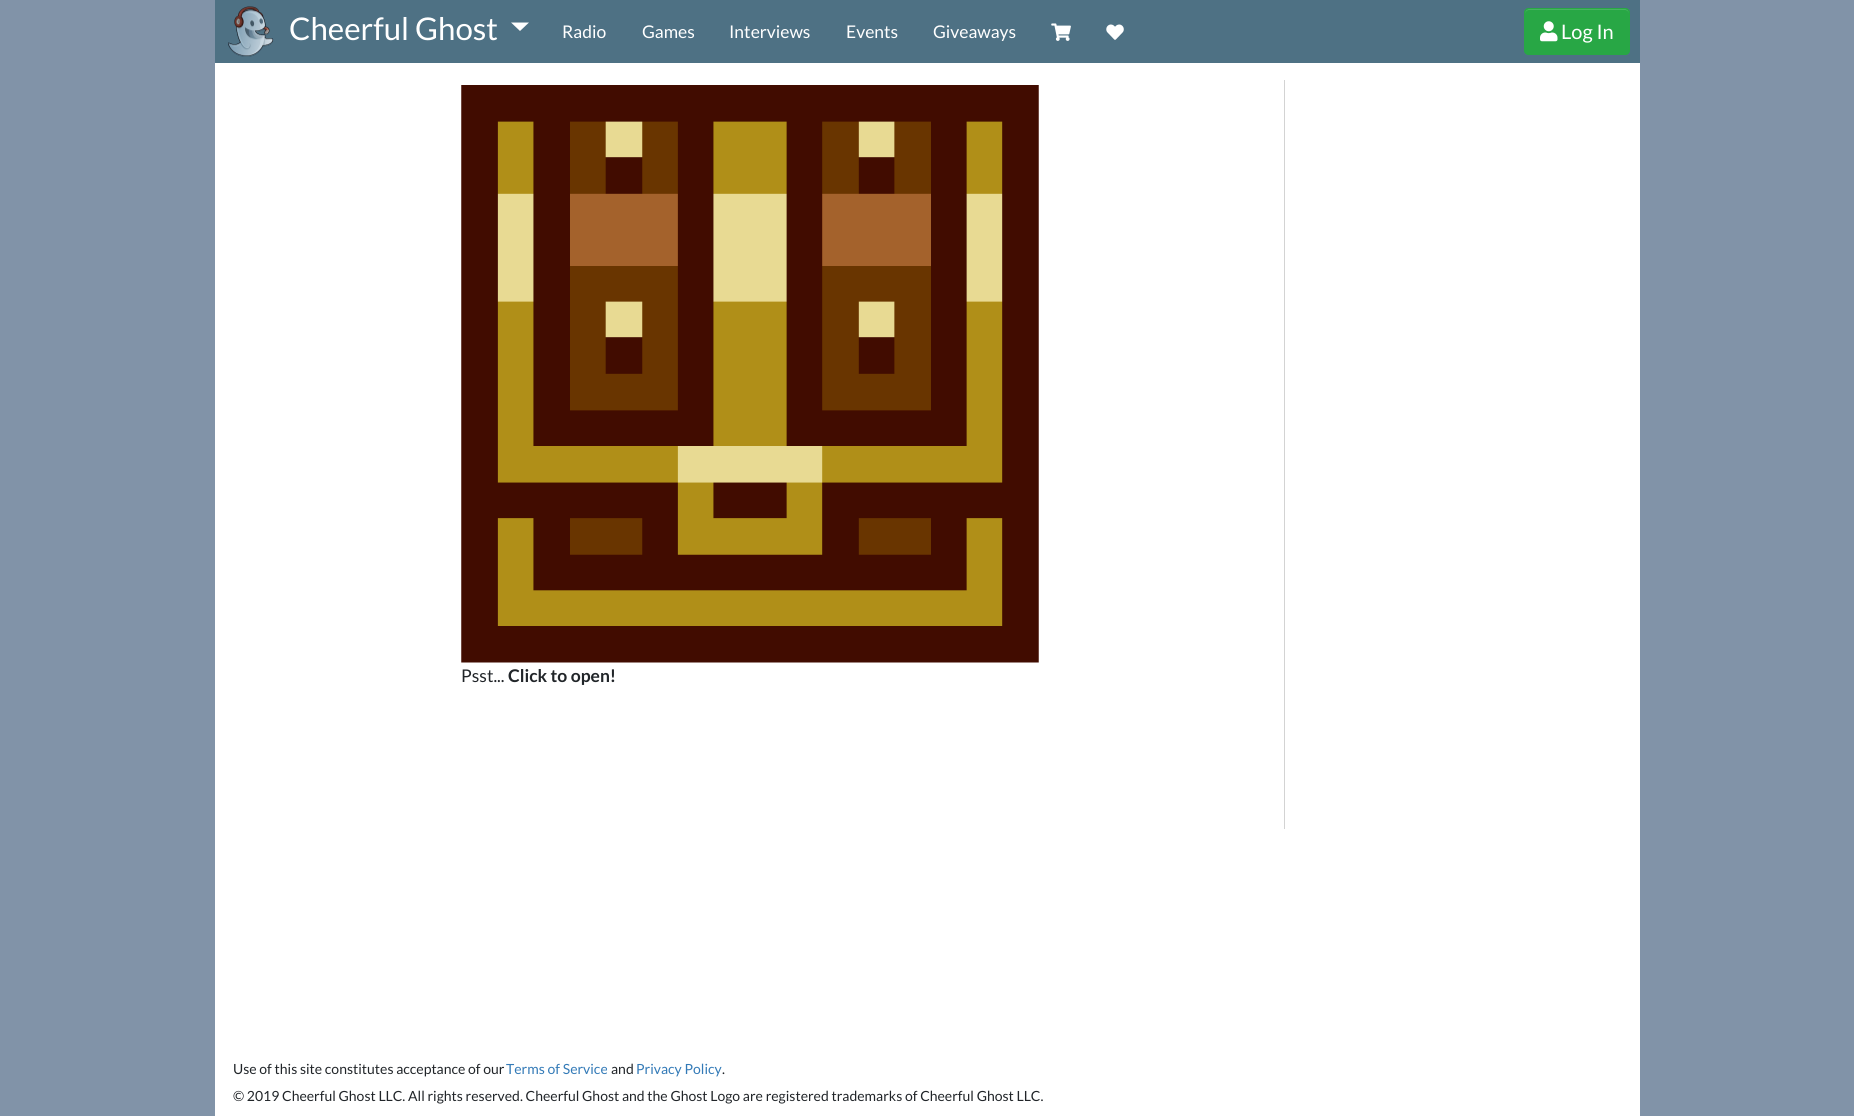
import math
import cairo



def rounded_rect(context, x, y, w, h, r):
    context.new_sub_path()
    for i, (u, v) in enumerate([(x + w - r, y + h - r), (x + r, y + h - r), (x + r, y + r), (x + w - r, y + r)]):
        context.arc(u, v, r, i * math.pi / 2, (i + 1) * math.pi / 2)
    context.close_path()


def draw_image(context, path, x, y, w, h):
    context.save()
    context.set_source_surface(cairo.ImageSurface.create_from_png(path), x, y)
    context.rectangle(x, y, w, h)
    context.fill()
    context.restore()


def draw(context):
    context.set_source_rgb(129 / 255, 147 / 255, 168 / 255)
    context.paint()
    context.set_source_rgb(78 / 255, 113 / 255, 132 / 255)
    context.rectangle(215, 0, 1425, 63)
    context.fill()
    draw_image(context, "images/1.png", 228, 6, 46, 51)
    context.set_source_rgb(1, 1, 1)
    context.new_path()
    context.move_to(511, 22.5)
    context.line_to(529, 22.5)
    context.line_to(520, 31)
    context.close_path()
    context.fill()
    draw_image(context, "images/2.png", 1051, 23, 20, 18)
    draw_image(context, "images/3.png", 1106, 24, 18, 16)
    context.set_source_rgb(40 / 255, 167 / 255, 69 / 255)
    rounded_rect(context, 1524, 8, 106, 47, 5)
    context.fill()
    context.set_source_rgb(72 / 255, 180 / 255, 97 / 255)
    context.new_path()
    context.move_to(1529, 10)
    context.line_to(1625, 10)
    context.curve_to(1627, 10, 1629, 12, 1629, 14)
    context.curve_to(1629, 5, 1613, 9, 1609, 9)
    context.line_to(1545, 9)
    context.curve_to(1541, 9, 1525, 5, 1525, 14)
    context.curve_to(1525, 12, 1527, 10, 1529, 10)
    context.close_path()
    context.fill()
    rounded_rect(context, 1524.5, 8.5, 105, 46, 4.5)
    context.set_source_rgb(40 / 255, 167 / 255, 69 / 255)
    context.set_line_width(1)
    context.stroke()
    draw_image(context, "images/4.png", 1540, 21, 18, 21)
    context.set_source_rgb(1, 1, 1)
    context.rectangle(215, 63, 1425, 1053)
    context.fill()
    draw_image(context, "images/5.png", 461, 85, 578, 578)
    context.set_source_rgb(211 / 255, 211 / 255, 211 / 255)
    context.rectangle(1284, 80, 1, 749)
    context.fill()
    context.select_font_face("Lato")
    context.set_font_size(31.25)
    context.set_source_rgb(1, 1, 1)
    context.move_to(289, 40)
    context.show_text("Cheerful Ghost")
    context.set_font_size(17.5)
    context.move_to(562, 38)
    context.show_text("Radio")
    context.move_to(642, 38)
    context.show_text("Games")
    context.move_to(729, 38)
    context.show_text("Interviews")
    context.move_to(846, 38)
    context.show_text("Events")
    context.move_to(933, 38)
    context.show_text("Giveaways")
    context.set_font_size(20)
    context.move_to(1561, 39)
    context.show_text("Log In")
    context.set_font_size(17.5)
    context.set_source_rgb(33 / 255, 37 / 255, 41 / 255)
    context.move_to(461, 682)
    context.show_text("Psst...")
    context.select_font_face("Lato", cairo.FontSlant.NORMAL, cairo.FontWeight.BOLD)
    context.move_to(508, 682)
    context.show_text("Click to open!")
    context.select_font_face("Lato")
    context.set_font_size(14)
    context.move_to(233, 1074)
    context.show_text("Use of this site constitutes acceptance of our")
    context.set_source_rgb(51 / 255, 122 / 255, 183 / 255)
    context.move_to(506, 1074)
    context.show_text("Terms of Service")
    context.set_source_rgb(33 / 255, 37 / 255, 41 / 255)
    context.move_to(611, 1074)
    context.show_text("and")
    context.set_source_rgb(51 / 255, 122 / 255, 183 / 255)
    context.move_to(636, 1074)
    context.show_text("Privacy Policy")
    context.set_source_rgb(33 / 255, 37 / 255, 41 / 255)
    context.move_to(722, 1074)
    context.show_text(".")
    context.move_to(233, 1101)
    context.show_text("© 2019 Cheerful Ghost LLC. All rights reserved. Cheerful Ghost and the Ghost Logo are registered trademarks of Cheerful Ghost LLC.")


surface = cairo.ImageSurface(cairo.Format.RGB24, 1854, 1116)
context = cairo.Context(surface)
options = cairo.FontOptions()
options.set_hint_metrics(cairo.HintMetrics.OFF)
options.set_hint_style(cairo.HintStyle.NONE)
context.set_font_options(options)
context.set_miter_limit(4)
draw(context)
surface.write_to_png("out.png")
